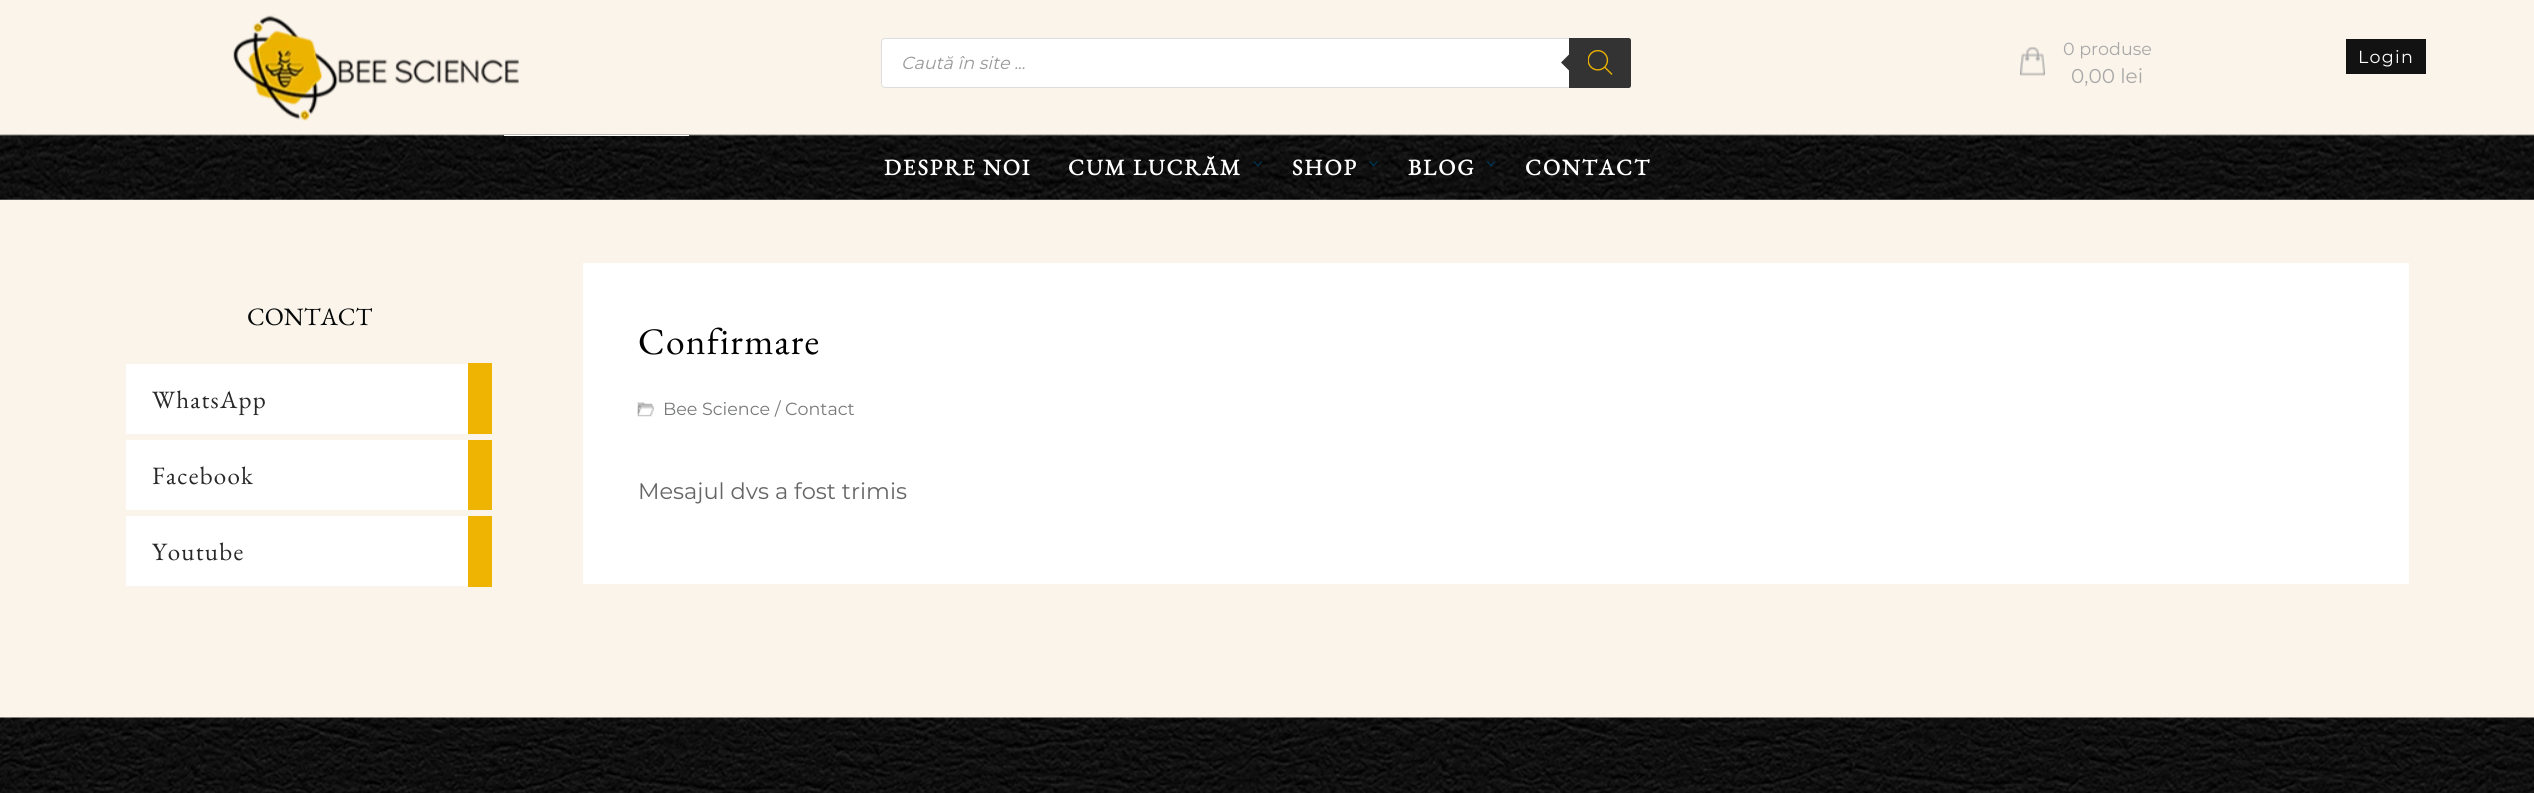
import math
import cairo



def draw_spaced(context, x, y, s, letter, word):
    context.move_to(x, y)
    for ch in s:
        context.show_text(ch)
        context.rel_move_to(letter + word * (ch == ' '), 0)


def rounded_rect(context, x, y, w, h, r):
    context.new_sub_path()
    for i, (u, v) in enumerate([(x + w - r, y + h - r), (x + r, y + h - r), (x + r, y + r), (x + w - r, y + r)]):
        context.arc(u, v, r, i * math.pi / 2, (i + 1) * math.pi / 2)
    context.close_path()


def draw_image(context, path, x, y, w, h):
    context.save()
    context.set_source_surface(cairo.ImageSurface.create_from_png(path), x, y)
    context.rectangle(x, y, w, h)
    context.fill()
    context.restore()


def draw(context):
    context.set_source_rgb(251 / 255, 244 / 255, 234 / 255)
    context.paint()
    draw_image(context, "images/1.png", 233, 15, 286, 106)
    context.set_source_rgb(1, 1, 1)
    rounded_rect(context, 881.5, 38.5, 749, 49, 3.5)
    context.fill_preserve()
    context.set_source_rgb(221 / 255, 221 / 255, 221 / 255)
    context.set_line_width(1)
    context.stroke()
    context.set_source_rgb(51 / 255, 51 / 255, 51 / 255)
    context.new_path()
    context.move_to(1569, 38)
    context.line_to(1628.5, 38)
    context.curve_to(1630, 38, 1631, 39, 1631, 40.5)
    context.line_to(1631, 85.5)
    context.curve_to(1631, 87, 1630, 88, 1628.5, 88)
    context.line_to(1569, 88)
    context.close_path()
    context.fill()
    context.new_path()
    context.move_to(1571, 52.5)
    context.line_to(1571, 72.5)
    context.line_to(1561, 62.5)
    context.close_path()
    context.fill()
    draw_image(context, "images/2.png", 1588, 50, 25, 25)
    draw_image(context, "images/3.png", 2020, 47, 25, 29)
    context.set_source_rgb(18 / 255, 18 / 255, 18 / 255)
    context.rectangle(2346, 39, 80, 35)
    context.fill()
    draw_image(context, "images/4.png", 0, 134, 2534, 66)
    context.set_source_rgb(1, 1, 1)
    context.rectangle(504, 135, 185, 1)
    context.fill()
    context.set_source_rgb(0, 51 / 255, 78 / 255)
    context.new_path()
    context.move_to(1261.5, 161)
    context.line_to(1262, 162)
    context.line_to(1258, 166.5)
    context.line_to(1257, 165.5)
    context.close_path()
    context.fill()
    context.new_path()
    context.move_to(1254.5, 161)
    context.line_to(1258.5, 165.5)
    context.line_to(1258, 166.5)
    context.line_to(1253.5, 162)
    context.close_path()
    context.fill()
    context.new_path()
    context.move_to(1377, 161)
    context.line_to(1378, 162)
    context.line_to(1373.5, 166.5)
    context.line_to(1372.5, 165.5)
    context.close_path()
    context.fill()
    context.new_path()
    context.move_to(1370, 161)
    context.line_to(1374.5, 165.5)
    context.line_to(1373.5, 166.5)
    context.line_to(1369, 162)
    context.close_path()
    context.fill()
    context.new_path()
    context.move_to(1494.5, 161)
    context.line_to(1495.5, 162)
    context.line_to(1491, 166.5)
    context.line_to(1490, 165.5)
    context.close_path()
    context.fill()
    context.new_path()
    context.move_to(1487.5, 161)
    context.line_to(1492, 165.5)
    context.line_to(1491, 166.5)
    context.line_to(1486.5, 162)
    context.close_path()
    context.fill()
    context.set_source_rgb(1, 1, 1)
    context.rectangle(126, 364, 342, 70)
    context.fill()
    context.set_source_rgb(239 / 255, 179 / 255, 1 / 255)
    context.rectangle(468, 363, 24, 71)
    context.fill()
    context.set_source_rgb(1, 1, 1)
    context.rectangle(126, 440, 342, 70)
    context.fill()
    context.set_source_rgb(239 / 255, 179 / 255, 1 / 255)
    context.rectangle(468, 440, 24, 70)
    context.fill()
    context.set_source_rgb(1, 1, 1)
    context.rectangle(126, 516, 342, 70)
    context.fill()
    context.set_source_rgb(239 / 255, 179 / 255, 1 / 255)
    context.rectangle(468, 516, 24, 71)
    context.fill()
    context.set_source_rgb(1, 1, 1)
    context.rectangle(583, 263, 1826, 321)
    context.fill()
    draw_image(context, "images/5.png", 637, 402, 17, 15)
    draw_image(context, "images/6.png", 0, 717, 2534, 76)
    context.select_font_face("Montserrat Thin", cairo.FontSlant.ITALIC)
    context.set_font_size(17.5)
    context.set_source_rgb(153 / 255, 153 / 255, 153 / 255)
    context.move_to(901, 69)
    context.show_text("Caută în site ...")
    context.select_font_face("Montserrat Thin")
    context.set_source_rgb(168 / 255, 168 / 255, 168 / 255)
    context.move_to(2063, 55)
    context.show_text("0 produse")
    context.set_font_size(20)
    context.move_to(2071, 83)
    context.show_text("0,00 lei")
    context.set_font_size(17.5)
    context.set_source_rgb(1, 1, 1)
    draw_spaced(context, 2358, 63, "Login", 1.25, 0)
    context.select_font_face("EB Garamond", cairo.FontSlant.NORMAL, cairo.FontWeight.BOLD)
    context.set_font_size(22.5)
    draw_spaced(context, 884, 175, "DESPRE NOI", 1.9, 0)
    draw_spaced(context, 1068, 175, "CUM LUCRĂM", 1.9, 0)
    draw_spaced(context, 1292, 175, "SHOP", 1.9, 0)
    draw_spaced(context, 1408, 175, "BLOG", 1.9, 0)
    draw_spaced(context, 1525, 175, "CONTACT", 1.9, 0)
    context.select_font_face("EB Garamond")
    context.set_font_size(25)
    context.set_source_rgb(4 / 255, 7 / 255, 7 / 255)
    context.move_to(247, 325)
    context.show_text("CONTACT")
    context.set_source_rgb(40 / 255, 40 / 255, 40 / 255)
    draw_spaced(context, 152, 408, "WhatsApp", 1.25, 0)
    draw_spaced(context, 152, 484, "Facebook", 1.25, 0)
    draw_spaced(context, 152, 560, "Youtube", 1.25, 0)
    context.set_font_size(37.5)
    context.set_source_rgb(0, 0, 0)
    draw_spaced(context, 638, 354, "Confirmare", 1.25, 0)
    context.select_font_face("Montserrat Thin")
    context.set_font_size(17.5)
    context.set_source_rgb(120 / 255, 121 / 255, 121 / 255)
    context.move_to(663, 415)
    context.show_text("Bee Science / Contact")
    context.set_font_size(22.5)
    context.set_source_rgb(101 / 255, 101 / 255, 101 / 255)
    context.move_to(638, 499)
    context.show_text("Mesajul dvs a fost trimis")


surface = cairo.ImageSurface(cairo.Format.RGB24, 2534, 793)
context = cairo.Context(surface)
options = cairo.FontOptions()
options.set_hint_metrics(cairo.HintMetrics.OFF)
options.set_hint_style(cairo.HintStyle.NONE)
context.set_font_options(options)
context.set_miter_limit(4)
draw(context)
surface.write_to_png("out.png")
